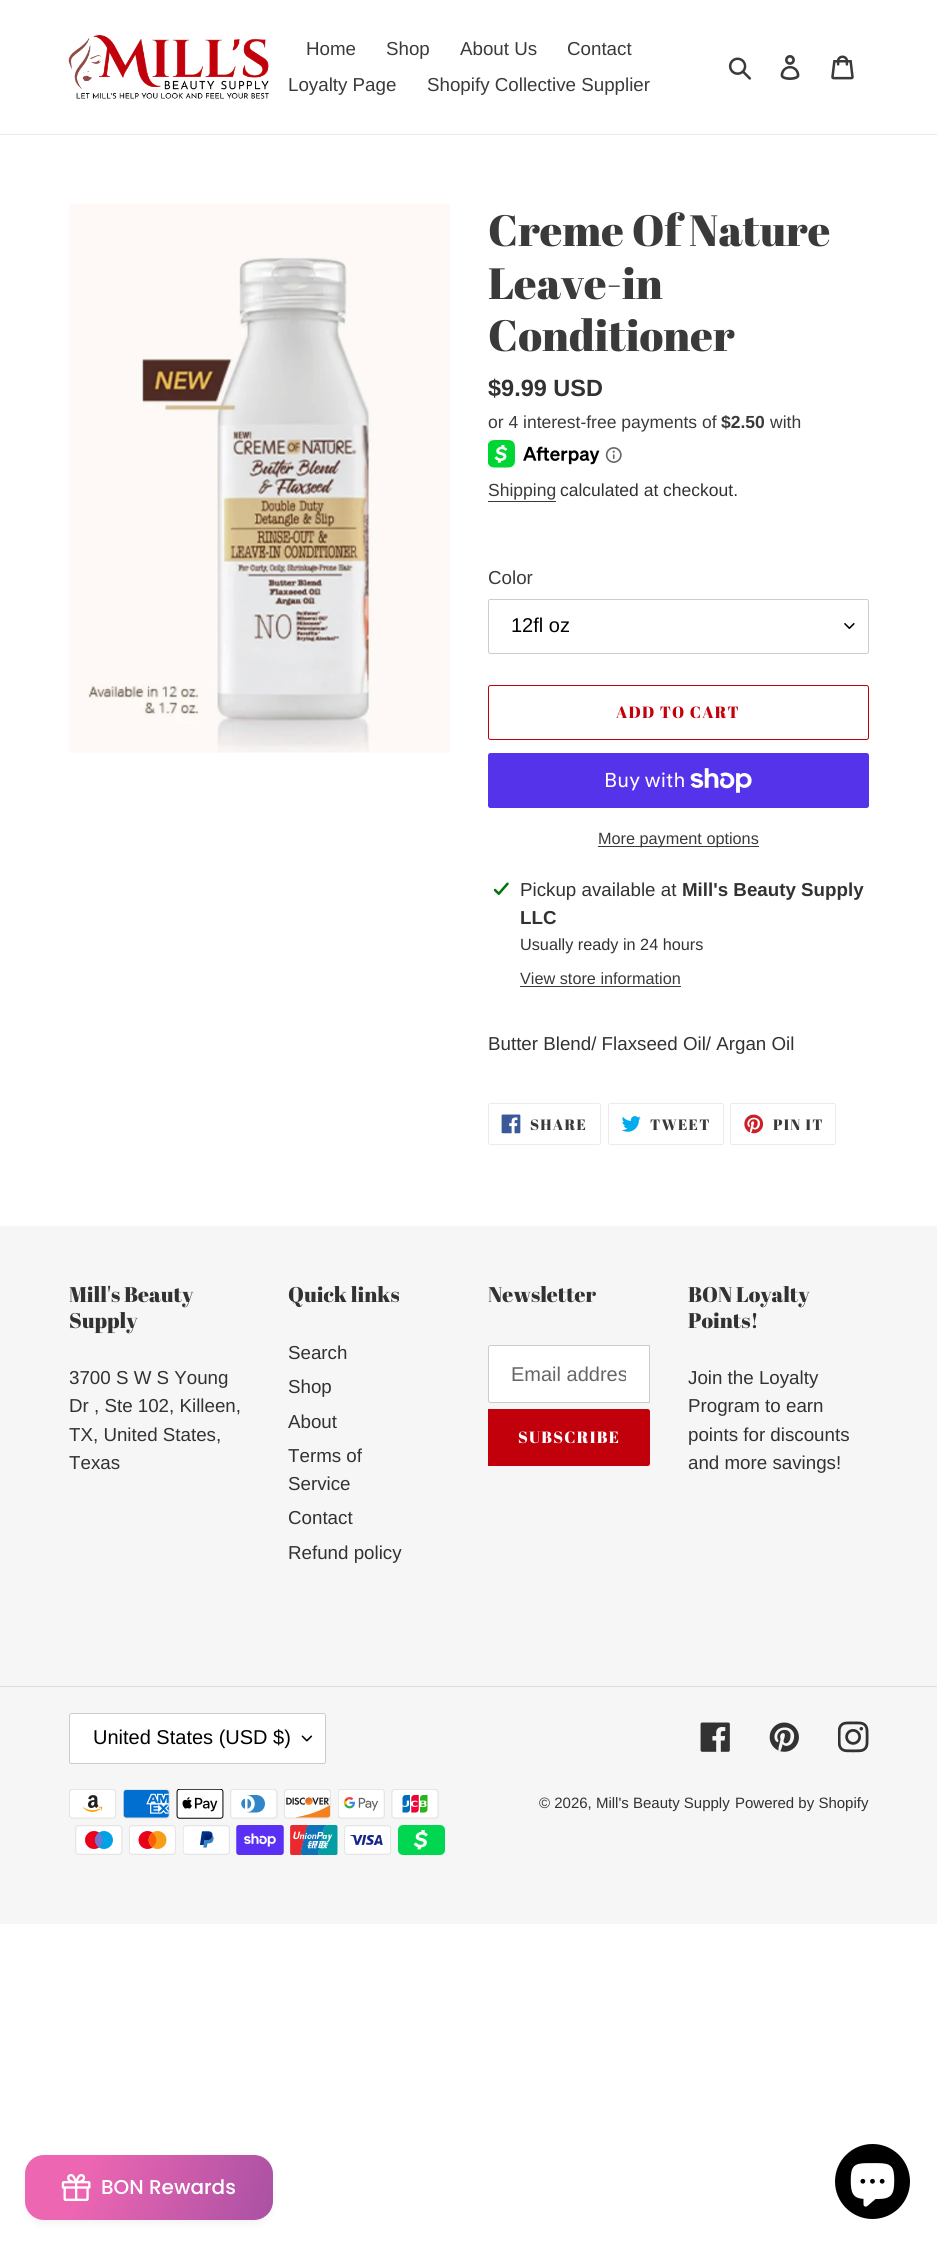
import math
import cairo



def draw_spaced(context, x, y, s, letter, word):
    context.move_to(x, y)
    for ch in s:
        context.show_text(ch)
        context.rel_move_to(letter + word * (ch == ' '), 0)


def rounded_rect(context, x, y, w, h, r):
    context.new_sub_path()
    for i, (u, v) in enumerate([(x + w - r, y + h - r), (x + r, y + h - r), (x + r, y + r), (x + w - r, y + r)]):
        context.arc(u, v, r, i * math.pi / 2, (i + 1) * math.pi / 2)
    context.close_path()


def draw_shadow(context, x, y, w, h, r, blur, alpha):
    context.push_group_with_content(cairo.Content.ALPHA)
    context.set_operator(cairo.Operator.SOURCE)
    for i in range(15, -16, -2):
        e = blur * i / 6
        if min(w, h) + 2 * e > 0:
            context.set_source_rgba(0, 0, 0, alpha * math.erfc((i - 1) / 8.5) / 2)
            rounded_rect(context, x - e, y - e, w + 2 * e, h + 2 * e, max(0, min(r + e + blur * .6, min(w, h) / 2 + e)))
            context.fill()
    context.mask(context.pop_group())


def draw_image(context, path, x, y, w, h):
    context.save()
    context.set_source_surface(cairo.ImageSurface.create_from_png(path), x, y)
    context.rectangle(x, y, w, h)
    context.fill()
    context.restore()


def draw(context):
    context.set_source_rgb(1, 1, 1)
    context.paint()
    context.set_source_rgb(235 / 255, 235 / 255, 235 / 255)
    context.rectangle(0, 134, 937, 1)
    context.fill()
    draw_image(context, "images/1.png", 68, 35, 201, 64)
    draw_image(context, "images/2.png", 728, 57, 23, 23)
    draw_image(context, "images/3.png", 780, 55, 20, 25)
    draw_image(context, "images/4.png", 831, 55, 23, 25)
    draw_image(context, "images/5.png", 69, 204, 381, 549)
    draw_image(context, "images/6.png", 488, 440, 112, 28)
    draw_image(context, "images/7.png", 605, 447, 17, 16)
    context.set_source_rgb(58 / 255, 58 / 255, 58 / 255)
    context.rectangle(488, 501, 68, 1)
    context.fill()
    draw_image(context, "images/8.png", 844, 623, 11, 6)
    rounded_rect(context, 488.5, 599.5, 380, 54, 2)
    context.set_source_rgb(204 / 255, 204 / 255, 204 / 255)
    context.set_line_width(1)
    context.stroke()
    rounded_rect(context, 488.5, 685.5, 380, 54, 2)
    context.set_source_rgb(194 / 255, 0, 11 / 255)
    context.stroke()
    context.set_source_rgb(84 / 255, 51 / 255, 235 / 255)
    rounded_rect(context, 488, 753, 381, 55, 2.5)
    context.fill()
    draw_image(context, "images/9.png", 690, 768, 62, 25)
    context.set_source_rgb(58 / 255, 58 / 255, 58 / 255)
    context.rectangle(598, 846, 161, 1)
    context.fill()
    draw_image(context, "images/10.png", 494, 882, 15, 13)
    context.rectangle(520, 986, 161, 1)
    context.fill()
    rounded_rect(context, 488.5, 1103.5, 112, 41, 2)
    context.set_source_rgb(235 / 255, 235 / 255, 235 / 255)
    context.stroke()
    draw_image(context, "images/11.png", 501, 1114, 20, 20)
    rounded_rect(context, 608.5, 1103.5, 115, 41, 2)
    context.stroke()
    draw_image(context, "images/12.png", 621, 1116, 20, 16)
    rounded_rect(context, 730.5, 1103.5, 105, 41, 2)
    context.stroke()
    draw_image(context, "images/13.png", 744, 1114, 20, 20)
    context.set_source_rgb(246 / 255, 246 / 255, 246 / 255)
    context.rectangle(0, 1226, 937, 698)
    context.fill()
    context.set_source_rgb(1, 1, 1)
    context.new_path()
    context.move_to(490.5, 1345.5)
    context.line_to(649.5, 1345.5)
    context.line_to(649.5, 1402.5)
    context.line_to(490.5, 1402.5)
    context.curve_to(489.5, 1402.5, 488.5, 1401.5, 488.5, 1400.5)
    context.line_to(488.5, 1347.5)
    context.curve_to(488.5, 1346.5, 489.5, 1345.5, 490.5, 1345.5)
    context.close_path()
    context.fill_preserve()
    context.set_source_rgb(204 / 255, 204 / 255, 204 / 255)
    context.stroke()
    context.set_source_rgb(194 / 255, 0, 11 / 255)
    context.new_path()
    context.move_to(488, 1409)
    context.line_to(647.5, 1409)
    context.curve_to(649, 1409, 650, 1410, 650, 1411.5)
    context.line_to(650, 1463.5)
    context.curve_to(650, 1465, 649, 1466, 647.5, 1466)
    context.line_to(488, 1466)
    context.close_path()
    context.fill()
    context.set_source_rgb(221 / 255, 221 / 255, 221 / 255)
    context.rectangle(0, 1686, 937, 1)
    context.fill()
    context.set_source_rgb(1, 1, 1)
    rounded_rect(context, 69, 1713, 257, 51, 2.5)
    context.fill()
    draw_image(context, "images/14.png", 301, 1735, 12, 7)
    rounded_rect(context, 69.5, 1713.5, 256, 50, 2)
    context.set_source_rgb(204 / 255, 204 / 255, 204 / 255)
    context.stroke()
    draw_image(context, "images/15.png", 700, 1722, 30, 30)
    draw_image(context, "images/16.png", 769, 1722, 30, 30)
    draw_image(context, "images/17.png", 838, 1721, 31, 32)
    draw_image(context, "images/18.png", 69, 1789, 47, 30)
    draw_image(context, "images/19.png", 123, 1789, 47, 30)
    draw_image(context, "images/20.png", 176, 1789, 48, 30)
    draw_image(context, "images/21.png", 230, 1789, 48, 30)
    draw_image(context, "images/22.png", 284, 1789, 47, 30)
    draw_image(context, "images/23.png", 338, 1789, 47, 30)
    draw_image(context, "images/24.png", 391, 1789, 48, 30)
    draw_image(context, "images/25.png", 75, 1825, 48, 30)
    draw_image(context, "images/26.png", 129, 1825, 47, 30)
    draw_image(context, "images/27.png", 183, 1825, 47, 30)
    draw_image(context, "images/28.png", 236, 1825, 48, 30)
    draw_image(context, "images/29.png", 290, 1825, 48, 30)
    draw_image(context, "images/30.png", 344, 1825, 47, 30)
    draw_image(context, "images/31.png", 398, 1825, 47, 30)
    context.set_source_rgb(68 / 255, 68 / 255, 68 / 255)
    draw_shadow(context, 28, 2163, 242, 60, 16, 5, 0.08)
    gradient = cairo.LinearGradient(29, 2145, 365, 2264)
    gradient.add_color_stop_rgba(0.17, 237 / 255, 102 / 255, 178 / 255, 1)
    gradient.add_color_stop_rgba(1, 134 / 255, 70 / 255, 156 / 255, 1)
    context.set_source(gradient)
    rounded_rect(context, 25, 2155, 248, 65, 19)
    context.fill()
    draw_image(context, "images/32.png", 61, 2174, 30, 27)
    context.set_source_rgb(0, 0, 0)
    context.arc(872.5, 2181.5, 37.5, 0, 2 * math.pi)
    context.fill()
    draw_image(context, "images/33.png", 850, 2163, 45, 44)
    context.select_font_face("Liberation Sans")
    context.set_font_size(18.75)
    context.set_source_rgb(58 / 255, 58 / 255, 58 / 255)
    context.move_to(306, 55)
    context.show_text("Home")
    context.move_to(386, 55)
    context.show_text("Shop")
    context.move_to(460, 55)
    context.show_text("About Us")
    context.move_to(567, 55)
    context.show_text("Contact")
    context.move_to(288, 91)
    context.show_text("Loyalty Page")
    context.move_to(427, 91)
    context.show_text("Shopify Collective Supplier")
    context.select_font_face("Abril Fatface")
    context.set_font_size(43.75)
    context.move_to(488, 246)
    context.show_text("Creme Of Nature")
    context.move_to(488, 299)
    context.show_text("Leave-in")
    context.move_to(488, 351)
    context.show_text("Conditioner")
    context.select_font_face("Liberation Sans", cairo.FontSlant.NORMAL, cairo.FontWeight.BOLD)
    context.set_font_size(23.5)
    context.set_source_rgb(51 / 255, 50 / 255, 50 / 255)
    context.move_to(488, 396)
    context.show_text("$9.99 USD")
    context.select_font_face("Liberation Sans")
    context.set_font_size(17.5)
    context.set_source_rgb(58 / 255, 58 / 255, 58 / 255)
    context.move_to(488, 428)
    context.show_text("or 4 interest-free payments of")
    context.select_font_face("Liberation Sans", cairo.FontSlant.NORMAL, cairo.FontWeight.BOLD)
    context.move_to(721, 428)
    context.show_text("$2.50")
    context.select_font_face("Liberation Sans")
    context.move_to(770, 428)
    context.show_text("with")
    context.move_to(488, 496)
    context.show_text("Shipping")
    context.set_source_rgb(51 / 255, 50 / 255, 50 / 255)
    context.move_to(560, 496)
    context.show_text("calculated at checkout.")
    context.set_font_size(18.75)
    context.set_source_rgb(58 / 255, 58 / 255, 58 / 255)
    context.move_to(488, 584)
    context.show_text("Color")
    context.set_font_size(20)
    context.set_source_rgb(0, 0, 0)
    context.move_to(511, 632)
    context.show_text("12fl oz")
    context.select_font_face("Abril Fatface")
    context.set_font_size(16.25)
    context.set_source_rgb(194 / 255, 0, 11 / 255)
    draw_spaced(context, 616, 718, "ADD TO CART", 1.25, 0)
    context.select_font_face("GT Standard")
    context.set_font_size(20)
    context.set_source_rgb(1, 1, 1)
    context.move_to(604, 787)
    context.show_text("Buy with")
    context.select_font_face("Liberation Sans")
    context.set_font_size(16.25)
    context.set_source_rgb(58 / 255, 58 / 255, 58 / 255)
    context.move_to(598, 844)
    context.show_text("More payment options")
    context.set_font_size(18.75)
    context.set_source_rgb(51 / 255, 50 / 255, 50 / 255)
    context.move_to(520, 896)
    context.show_text("Pickup available at")
    context.select_font_face("Liberation Sans", cairo.FontSlant.NORMAL, cairo.FontWeight.BOLD)
    context.move_to(682, 896)
    context.show_text("Mill's Beauty Supply")
    context.move_to(520, 924)
    context.show_text("LLC")
    context.select_font_face("Liberation Sans")
    context.set_font_size(16.25)
    context.move_to(520, 950)
    context.show_text("Usually ready in 24 hours")
    context.set_source_rgb(58 / 255, 58 / 255, 58 / 255)
    context.move_to(520, 984)
    context.show_text("View store information")
    context.set_font_size(18.75)
    context.set_source_rgb(51 / 255, 50 / 255, 50 / 255)
    context.move_to(488, 1050)
    context.show_text("Butter Blend/ Flaxseed Oil/ Argan Oil")
    context.select_font_face("Abril Fatface")
    context.set_font_size(15)
    context.set_source_rgb(58 / 255, 58 / 255, 58 / 255)
    draw_spaced(context, 530, 1130, "SHARE", 1.25, 0)
    draw_spaced(context, 650, 1130, "TWEET", 1.25, 0)
    draw_spaced(context, 773, 1130, "PIN IT", 1.25, 0)
    context.set_font_size(21.25)
    context.set_source_rgb(51 / 255, 50 / 255, 50 / 255)
    context.move_to(69, 1302)
    context.show_text("Mill's Beauty")
    context.move_to(69, 1328)
    context.show_text("Supply")
    context.select_font_face("Liberation Sans")
    context.set_font_size(18.75)
    context.move_to(69, 1384)
    context.show_text("3700 S W S Young")
    context.move_to(69, 1412)
    context.show_text("Dr , Ste 102, Killeen,")
    context.move_to(69, 1441)
    context.show_text("TX, United States,")
    context.move_to(69, 1469)
    context.show_text("Texas")
    context.select_font_face("Abril Fatface")
    context.set_font_size(21.25)
    context.move_to(288, 1302)
    context.show_text("Quick links")
    context.select_font_face("Liberation Sans")
    context.set_font_size(18.75)
    context.move_to(288, 1359)
    context.show_text("Search")
    context.move_to(288, 1393)
    context.show_text("Shop")
    context.move_to(288, 1428)
    context.show_text("About")
    context.move_to(288, 1462)
    context.show_text("Terms of")
    context.move_to(288, 1490)
    context.show_text("Service")
    context.move_to(288, 1524)
    context.show_text("Contact")
    context.move_to(288, 1559)
    context.show_text("Refund policy")
    context.select_font_face("Abril Fatface")
    context.set_font_size(21.25)
    context.move_to(488, 1302)
    context.show_text("Newsletter")
    context.save()
    context.rectangle(511, 1363, 115, 22)
    context.clip()
    context.select_font_face("Liberation Sans")
    context.set_font_size(20)
    context.set_source_rgb(102 / 255, 102 / 255, 102 / 255)
    context.move_to(511, 1381)
    context.show_text("Email addres")
    context.restore()
    context.set_font_size(16.25)
    context.set_source_rgb(1, 1, 1)
    draw_spaced(context, 518, 1443, "SUBSCRIBE", 1.25, 0)
    context.set_font_size(21.25)
    context.set_source_rgb(51 / 255, 50 / 255, 50 / 255)
    context.move_to(688, 1302)
    context.show_text("BON Loyalty")
    context.move_to(688, 1328)
    context.show_text("Points!")
    context.select_font_face("Liberation Sans")
    context.set_font_size(18.75)
    context.move_to(688, 1384)
    context.show_text("Join the Loyalty")
    context.move_to(688, 1412)
    context.show_text("Program to earn")
    context.move_to(688, 1441)
    context.show_text("points for discounts")
    context.move_to(688, 1469)
    context.show_text("and more savings!")
    context.set_font_size(20)
    context.set_source_rgb(0, 0, 0)
    context.move_to(93, 1744)
    context.show_text("United States (USD $)")
    context.set_font_size(15)
    context.set_source_rgb(51 / 255, 50 / 255, 50 / 255)
    context.move_to(539, 1808)
    context.show_text("© 2026, Mill's Beauty Supply")
    context.move_to(735, 1808)
    context.show_text("Powered by Shopify")
    context.select_font_face("Poppins Medium")
    context.set_font_size(20)
    context.set_source_rgb(1, 1, 1)
    context.move_to(101, 2194)
    context.show_text("BON Rewards")


surface = cairo.ImageSurface(cairo.Format.RGB24, 937, 2244)
context = cairo.Context(surface)
options = cairo.FontOptions()
options.set_hint_metrics(cairo.HintMetrics.OFF)
options.set_hint_style(cairo.HintStyle.NONE)
context.set_font_options(options)
context.set_miter_limit(4)
draw(context)
surface.write_to_png("out.png")
